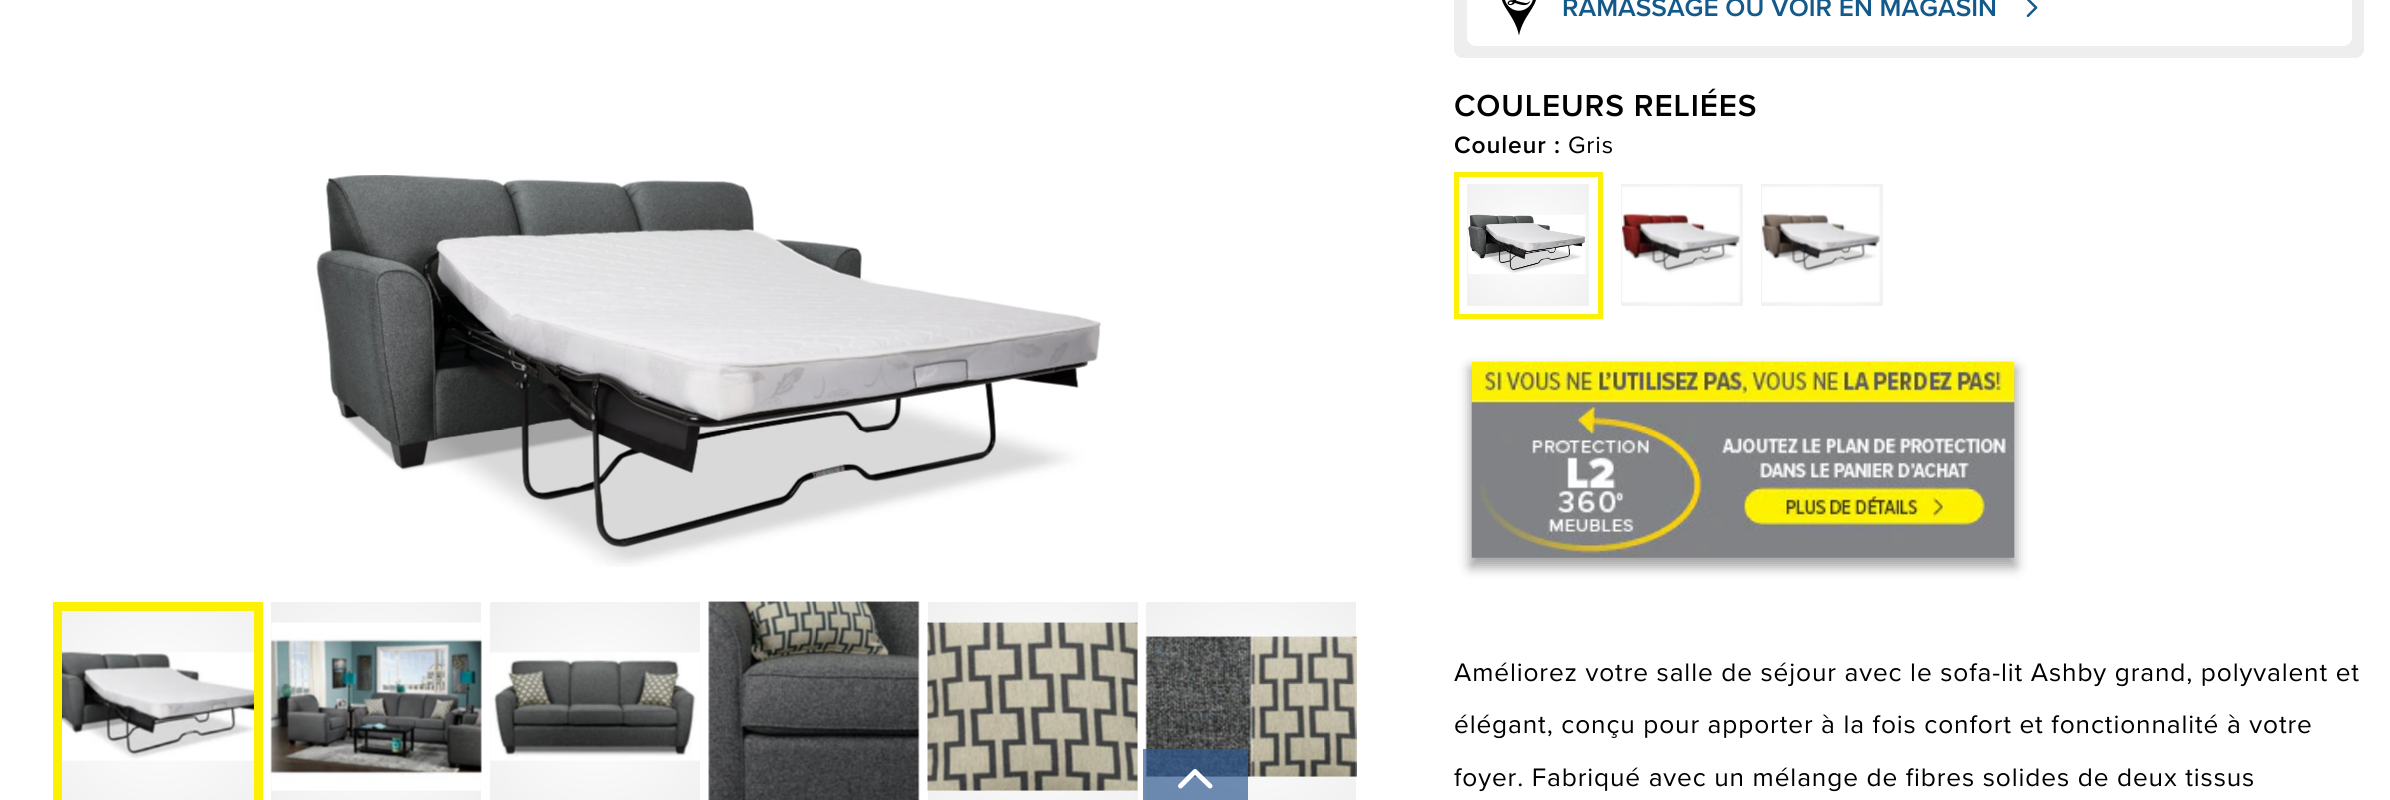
import math
import cairo



def draw_spaced(context, x, y, s, letter, word):
    context.move_to(x, y)
    for ch in s:
        context.show_text(ch)
        context.rel_move_to(letter + word * (ch == ' '), 0)


def rounded_rect(context, x, y, w, h, r):
    context.new_sub_path()
    for i, (u, v) in enumerate([(x + w - r, y + h - r), (x + r, y + h - r), (x + r, y + r), (x + w - r, y + r)]):
        context.arc(u, v, r, i * math.pi / 2, (i + 1) * math.pi / 2)
    context.close_path()


def draw_shadow(context, x, y, w, h, r, blur, alpha):
    context.push_group_with_content(cairo.Content.ALPHA)
    context.set_operator(cairo.Operator.SOURCE)
    for i in range(15, -16, -2):
        e = blur * i / 6
        if min(w, h) + 2 * e > 0:
            context.set_source_rgba(0, 0, 0, alpha * math.erfc((i - 1) / 8.5) / 2)
            rounded_rect(context, x - e, y - e, w + 2 * e, h + 2 * e, max(0, min(r + e + blur * .6, min(w, h) / 2 + e)))
            context.fill()
    context.mask(context.pop_group())


def draw_image(context, path, x, y, w, h):
    context.save()
    context.set_source_surface(cairo.ImageSurface.create_from_png(path), x, y)
    context.rectangle(x, y, w, h)
    context.fill()
    context.restore()


def draw(context):
    context.set_source_rgb(1, 1, 1)
    context.paint()
    gradient = cairo.RadialGradient(1251, 707, 0, 1251, 707, 148)
    gradient.add_color_stop_rgba(0, 1, 1, 1, 1)
    gradient.add_color_stop_rgba(1, 240 / 255, 240 / 255, 240 / 255, 1)
    context.set_source(gradient)
    context.rectangle(1146, 602, 210, 198)
    context.fill()
    draw_image(context, "images/7.png", 1145, 636, 212, 141)
    context.set_source_rgba(50 / 255, 92 / 255, 147 / 255, 0.7)
    context.rectangle(1143, 749, 105, 51)
    context.fill()
    context.new_path()
    context.move_to(1180.5, 786)
    context.line_to(1195, 771.5)
    context.line_to(1210, 786)
    context.set_source_rgb(1, 1, 1)
    context.set_line_width(4.9)
    context.set_line_cap(cairo.LineCap.ROUND)
    context.set_line_join(cairo.LineJoin.ROUND)
    context.stroke()
    draw_image(context, "images/1.png", 316, 175, 786, 392)
    gradient = cairo.RadialGradient(158, 707, 0, 158, 707, 148)
    gradient.add_color_stop_rgba(0, 1, 1, 1, 1)
    gradient.add_color_stop_rgba(1, 240 / 255, 240 / 255, 240 / 255, 1)
    context.set_source(gradient)
    context.rectangle(62, 611, 192, 189)
    context.fill()
    draw_image(context, "images/2.png", 62, 651, 192, 110)
    context.rectangle(57.5, 606.5, 201, 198)
    context.set_source_rgb(252 / 255, 241 / 255, 4 / 255)
    context.set_line_width(9)
    context.set_line_cap(cairo.LineCap.BUTT)
    context.set_line_join(cairo.LineJoin.MITER)
    context.stroke()
    gradient = cairo.RadialGradient(376, 707, 0, 376, 707, 148)
    gradient.add_color_stop_rgba(0, 1, 1, 1, 1)
    gradient.add_color_stop_rgba(1, 240 / 255, 240 / 255, 240 / 255, 1)
    context.set_source(gradient)
    context.rectangle(271, 602, 210, 198)
    context.fill()
    draw_image(context, "images/3.png", 270, 622, 212, 169)
    gradient = cairo.RadialGradient(595, 707, 0, 595, 707, 148)
    gradient.add_color_stop_rgba(0, 1, 1, 1, 1)
    gradient.add_color_stop_rgba(1, 240 / 255, 240 / 255, 240 / 255, 1)
    context.set_source(gradient)
    context.rectangle(490, 602, 210, 198)
    context.fill()
    draw_image(context, "images/4.png", 490, 652, 210, 109)
    gradient = cairo.RadialGradient(814, 707, 0, 814, 707, 148)
    gradient.add_color_stop_rgba(0, 1, 1, 1, 1)
    gradient.add_color_stop_rgba(1, 240 / 255, 240 / 255, 240 / 255, 1)
    context.set_source(gradient)
    context.rectangle(709, 602, 210, 198)
    context.fill()
    draw_image(context, "images/5.png", 708, 601, 212, 199)
    gradient = cairo.RadialGradient(1033, 707, 0, 1033, 707, 148)
    gradient.add_color_stop_rgba(0, 1, 1, 1, 1)
    gradient.add_color_stop_rgba(1, 240 / 255, 240 / 255, 240 / 255, 1)
    context.set_source(gradient)
    context.rectangle(928, 602, 210, 198)
    context.fill()
    draw_image(context, "images/6.png", 927, 622, 211, 169)
    context.set_source_rgb(238 / 255, 238 / 255, 238 / 255)
    rounded_rect(context, 1454, -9, 910, 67, 9)
    context.fill()
    context.set_source_rgb(1, 1, 1)
    rounded_rect(context, 1467, -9, 885, 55, 9)
    context.fill()
    draw_image(context, "images/8.png", 1502, 0, 34, 35)
    draw_image(context, "images/9.png", 2026, 0, 12, 18)
    context.rectangle(1456.5, 174.5, 144, 142)
    context.set_source_rgb(252 / 255, 241 / 255, 4 / 255)
    context.set_line_width(5)
    context.stroke()
    gradient = cairo.RadialGradient(1528, 245, 0, 1528, 245, 87)
    gradient.add_color_stop_rgba(0, 1, 1, 1, 1)
    gradient.add_color_stop_rgba(1, 240 / 255, 240 / 255, 240 / 255, 1)
    context.set_source(gradient)
    context.rectangle(1467, 184, 122, 122)
    context.fill()
    draw_image(context, "images/10.png", 1468, 214, 118, 60)
    gradient = cairo.RadialGradient(1682, 245, 0, 1682, 245, 87)
    gradient.add_color_stop_rgba(0, 1, 1, 1, 1)
    gradient.add_color_stop_rgba(1, 240 / 255, 240 / 255, 240 / 255, 1)
    context.set_source(gradient)
    context.rectangle(1621, 184, 122, 122)
    context.fill()
    draw_image(context, "images/11.png", 1622, 186, 118, 117)
    gradient = cairo.RadialGradient(1822, 245, 0, 1822, 245, 87)
    gradient.add_color_stop_rgba(0, 1, 1, 1, 1)
    gradient.add_color_stop_rgba(1, 240 / 255, 240 / 255, 240 / 255, 1)
    context.set_source(gradient)
    context.rectangle(1761, 184, 122, 122)
    context.fill()
    draw_image(context, "images/12.png", 1762, 186, 118, 117)
    context.set_source_rgb(0, 0, 0)
    draw_shadow(context, 1470, 368, 546, 199, 0, 6, 0.36)
    draw_image(context, "images/13.png", 1471, 361, 544, 197)
    context.select_font_face("Proxima Nova SemiBold")
    context.set_font_size(26.25)
    context.set_source_rgb(19 / 255, 90 / 255, 138 / 255)
    context.move_to(1562, 16)
    context.show_text("RAMASSAGE OU VOIR EN MAGASIN")
    context.set_font_size(31.5)
    context.set_source_rgb(0, 0, 0)
    draw_spaced(context, 1454, 116, "COULEURS RELIÉES", 0.88, 0)
    context.set_font_size(24.5)
    draw_spaced(context, 1454, 153, "Couleur :", 0.88, 0)
    context.select_font_face("Proxima Nova")
    draw_spaced(context, 1568, 153, "Gris", 0.88, 0)
    context.set_font_size(26.25)
    draw_spaced(context, 1454, 681, "Améliorez votre salle de séjour avec le sofa-lit Ashby grand, polyvalent et", 0.88, 0)
    draw_spaced(context, 1454, 733, "élégant, conçu pour apporter à la fois confort et fonctionnalité à votre", 0.88, 0)
    draw_spaced(context, 1454, 786, "foyer. Fabriqué avec un mélange de fibres solides de deux tissus", 0.88, 0)


surface = cairo.ImageSurface(cairo.Format.RGB24, 2390, 800)
context = cairo.Context(surface)
options = cairo.FontOptions()
options.set_hint_metrics(cairo.HintMetrics.OFF)
options.set_hint_style(cairo.HintStyle.NONE)
context.set_font_options(options)
context.set_miter_limit(4)
draw(context)
surface.write_to_png("out.png")
